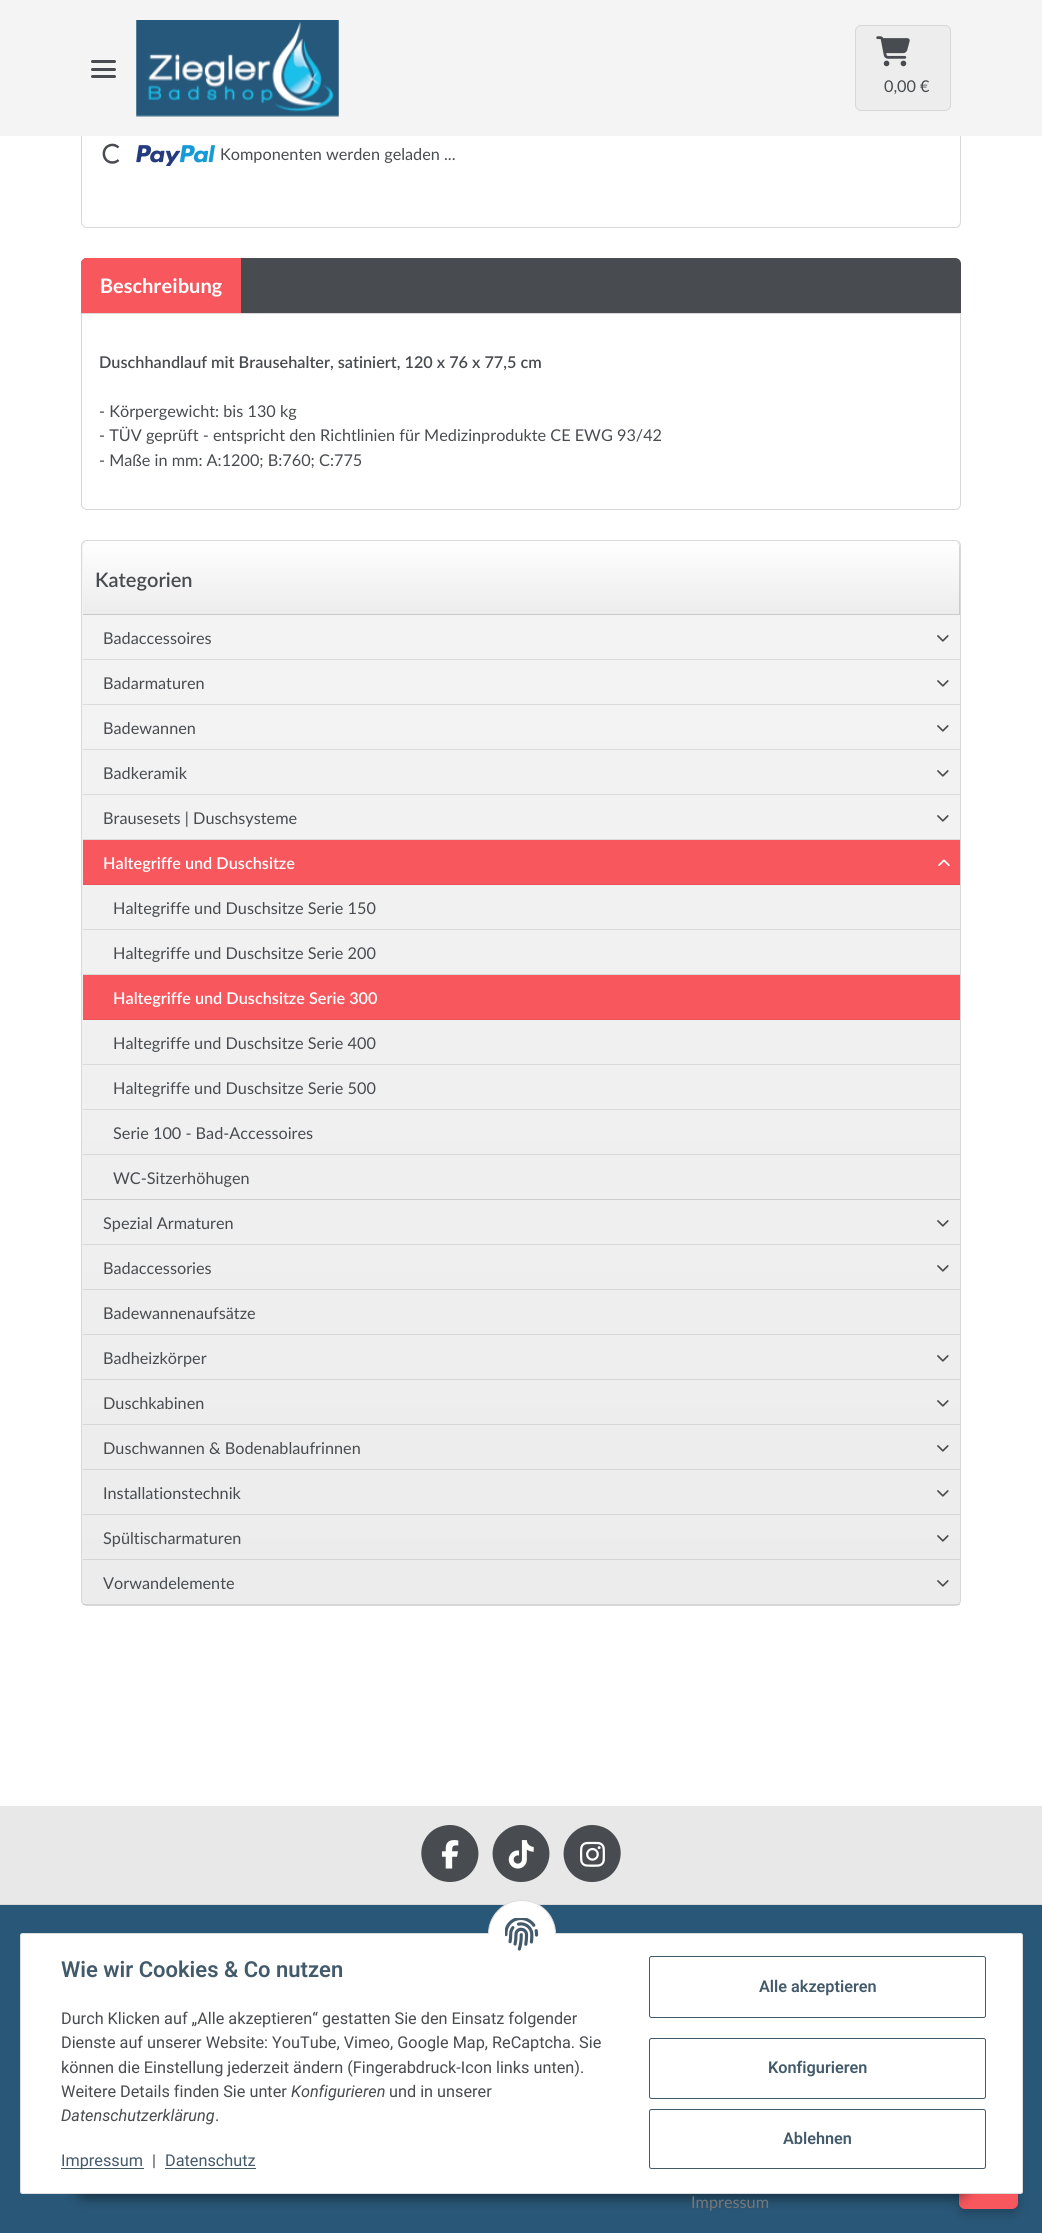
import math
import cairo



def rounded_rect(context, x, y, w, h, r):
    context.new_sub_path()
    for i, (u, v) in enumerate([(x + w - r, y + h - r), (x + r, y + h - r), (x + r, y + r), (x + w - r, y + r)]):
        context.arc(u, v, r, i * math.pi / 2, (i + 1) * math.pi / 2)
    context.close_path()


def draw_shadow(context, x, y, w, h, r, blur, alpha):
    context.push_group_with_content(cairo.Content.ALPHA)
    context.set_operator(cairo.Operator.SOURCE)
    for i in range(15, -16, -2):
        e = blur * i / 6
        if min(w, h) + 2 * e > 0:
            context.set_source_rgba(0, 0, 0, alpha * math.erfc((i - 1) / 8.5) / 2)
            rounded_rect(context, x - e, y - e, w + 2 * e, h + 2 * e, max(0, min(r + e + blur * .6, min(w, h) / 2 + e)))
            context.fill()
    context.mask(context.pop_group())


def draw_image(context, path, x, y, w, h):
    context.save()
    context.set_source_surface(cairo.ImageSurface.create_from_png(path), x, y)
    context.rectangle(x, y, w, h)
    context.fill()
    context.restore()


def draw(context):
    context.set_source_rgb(1, 1, 1)
    context.paint()
    rounded_rect(context, 81.5, -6.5, 879, 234, 5.5)
    context.set_source_rgb(216 / 255, 216 / 255, 216 / 255)
    context.set_line_width(1)
    context.stroke()
    context.set_source_rgb(244 / 255, 244 / 255, 244 / 255)
    context.rectangle(0, 0, 1042, 136)
    context.fill()
    context.set_source_rgb(72 / 255, 75 / 255, 79 / 255)
    rounded_rect(context, 91, 68, 25, 3, 1.5)
    context.fill()
    rounded_rect(context, 91, 60, 25, 3, 1.5)
    context.fill()
    rounded_rect(context, 91, 75, 25, 3, 1.5)
    context.fill()
    draw_image(context, "images/1.png", 136, 20, 203, 97)
    context.set_source_rgb(237 / 255, 237 / 255, 237 / 255)
    rounded_rect(context, 855.5, 25.5, 95, 85, 5.5)
    context.fill_preserve()
    context.set_source_rgb(216 / 255, 216 / 255, 216 / 255)
    context.stroke()
    draw_image(context, "images/2.png", 876, 36, 34, 31)
    context.new_path()
    context.move_to(118.5, 160)
    context.curve_to(117, 161.5, 115, 162.5, 112.5, 162.5)
    context.curve_to(102, 162.5, 100.5, 147, 111, 145)
    context.curve_to(113.5, 144.5, 116.5, 145.5, 118.5, 147.5)
    context.set_source_rgb(72 / 255, 75 / 255, 79 / 255)
    context.set_line_width(2.5)
    context.stroke()
    draw_image(context, "images/3.png", 136, 145, 79, 21)
    context.new_path()
    context.move_to(87, 258)
    context.line_to(955, 258)
    context.curve_to(958.5, 258, 961, 260.5, 961, 264)
    context.line_to(961, 313)
    context.line_to(81, 313)
    context.line_to(81, 264)
    context.curve_to(81, 260.5, 83.5, 258, 87, 258)
    context.close_path()
    context.fill()
    context.set_source_rgb(248 / 255, 87 / 255, 93 / 255)
    context.new_path()
    context.move_to(87, 258)
    context.line_to(241, 258)
    context.line_to(241, 313)
    context.line_to(81, 313)
    context.line_to(81, 264)
    context.curve_to(81, 260.5, 83.5, 258, 87, 258)
    context.close_path()
    context.fill()
    context.new_path()
    context.move_to(81.5, 313.5)
    context.line_to(960.5, 313.5)
    context.line_to(960.5, 504)
    context.curve_to(960.5, 507, 958, 509.5, 955, 509.5)
    context.line_to(87, 509.5)
    context.curve_to(84, 509.5, 81.5, 507, 81.5, 504)
    context.close_path()
    context.set_source_rgb(216 / 255, 216 / 255, 216 / 255)
    context.set_line_width(1)
    context.stroke()
    context.save()
    rounded_rect(context, 81, 540, 880, 1066, 6)
    context.clip()
    gradient = cairo.LinearGradient(521, 541, 521, 1605)
    gradient.add_color_stop_rgba(0, 244 / 255, 244 / 255, 244 / 255, 1)
    gradient.add_color_stop_rgba(1, 236 / 255, 236 / 255, 236 / 255, 1)
    context.set_source(gradient)
    context.rectangle(81, 541, 880, 1064)
    context.fill()
    context.restore()
    rounded_rect(context, 81.5, 540.5, 879, 1065, 5.5)
    context.stroke()
    gradient = cairo.LinearGradient(521, 541, 521, 615)
    gradient.add_color_stop_rgba(0, 1, 1, 1, 1)
    gradient.add_color_stop_rgba(1, 236 / 255, 236 / 255, 236 / 255, 1)
    context.set_source(gradient)
    context.new_path()
    context.move_to(89, 541)
    context.line_to(954, 541)
    context.curve_to(957.5, 541, 960, 543.5, 960, 547)
    context.line_to(960, 615)
    context.line_to(83, 615)
    context.line_to(83, 547)
    context.curve_to(83, 543.5, 85.5, 541, 89, 541)
    context.close_path()
    context.fill()
    context.set_source_rgba(0, 0, 0, 0.15)
    context.new_path()
    context.move_to(83, 614)
    context.line_to(83, 615)
    context.line_to(960, 615)
    context.line_to(960, 547)
    context.curve_to(960, 545, 959, 543, 957, 542)
    context.line_to(959, 545)
    context.line_to(959, 614)
    context.close_path()
    context.fill()
    context.set_source_rgb(219 / 255, 219 / 255, 219 / 255)
    context.rectangle(83, 659, 877, 1)
    context.fill()
    draw_image(context, "images/4.png", 937, 635, 12, 7)
    context.rectangle(83, 704, 877, 1)
    context.fill()
    draw_image(context, "images/4.png", 937, 680, 12, 7)
    context.rectangle(83, 749, 877, 1)
    context.fill()
    draw_image(context, "images/4.png", 937, 725, 12, 7)
    context.rectangle(83, 794, 877, 1)
    context.fill()
    draw_image(context, "images/5.png", 937, 770, 12, 7)
    context.rectangle(83, 839, 877, 1)
    context.fill()
    draw_image(context, "images/5.png", 937, 815, 12, 7)
    context.set_source_rgb(248 / 255, 87 / 255, 93 / 255)
    context.rectangle(83, 840, 877, 44)
    context.fill()
    context.set_source_rgb(236 / 255, 83 / 255, 88 / 255)
    context.rectangle(83, 884, 877, 1)
    context.fill()
    draw_image(context, "images/6.png", 938, 859, 12, 7)
    context.set_source_rgb(218 / 255, 218 / 255, 218 / 255)
    context.rectangle(83, 929, 877, 1)
    context.fill()
    context.rectangle(83, 974, 877, 1)
    context.fill()
    context.set_source_rgb(248 / 255, 87 / 255, 93 / 255)
    context.rectangle(83, 975, 877, 44)
    context.fill()
    context.set_source_rgb(236 / 255, 83 / 255, 88 / 255)
    context.rectangle(83, 1019, 877, 1)
    context.fill()
    context.set_source_rgb(217 / 255, 217 / 255, 217 / 255)
    context.rectangle(83, 1064, 877, 1)
    context.fill()
    context.rectangle(83, 1109, 877, 1)
    context.fill()
    context.set_source_rgb(216 / 255, 216 / 255, 216 / 255)
    context.rectangle(83, 1154, 877, 1)
    context.fill()
    context.set_source_rgb(205 / 255, 205 / 255, 205 / 255)
    context.rectangle(83, 1199, 877, 1)
    context.fill()
    context.set_source_rgb(216 / 255, 216 / 255, 216 / 255)
    context.rectangle(83, 1244, 877, 1)
    context.fill()
    draw_image(context, "images/7.png", 937, 1220, 12, 7)
    context.set_source_rgb(215 / 255, 215 / 255, 215 / 255)
    context.rectangle(83, 1289, 877, 1)
    context.fill()
    draw_image(context, "images/7.png", 937, 1265, 12, 7)
    context.rectangle(83, 1334, 877, 1)
    context.fill()
    context.rectangle(83, 1379, 877, 1)
    context.fill()
    draw_image(context, "images/8.png", 937, 1355, 12, 7)
    context.set_source_rgb(214 / 255, 214 / 255, 214 / 255)
    context.rectangle(83, 1424, 877, 1)
    context.fill()
    draw_image(context, "images/9.png", 937, 1400, 12, 7)
    context.rectangle(83, 1469, 877, 1)
    context.fill()
    draw_image(context, "images/10.png", 937, 1445, 12, 7)
    context.rectangle(83, 1514, 877, 1)
    context.fill()
    draw_image(context, "images/10.png", 937, 1490, 12, 7)
    context.set_source_rgb(213 / 255, 213 / 255, 213 / 255)
    context.rectangle(83, 1559, 877, 1)
    context.fill()
    draw_image(context, "images/11.png", 937, 1535, 12, 7)
    context.set_source_rgba(0, 0, 0, 0.05)
    context.rectangle(83, 1604, 877, 1)
    context.fill()
    context.rectangle(83, 1604, 877, 1)
    context.fill()
    draw_image(context, "images/12.png", 937, 1580, 12, 7)
    context.set_source_rgb(232 / 255, 232 / 255, 232 / 255)
    context.rectangle(0, 1806, 1042, 98)
    context.fill()
    context.set_source_rgb(216 / 255, 216 / 255, 216 / 255)
    context.rectangle(0, 1904, 1042, 1)
    context.fill()
    context.set_source_rgb(72 / 255, 75 / 255, 79 / 255)
    context.new_path()
    context.move_to(450, 1882)
    context.curve_to(477, 1882, 489, 1848, 467, 1831)
    context.curve_to(462, 1827, 456, 1825, 450, 1825)
    context.curve_to(444, 1825, 437, 1827, 432, 1831)
    context.curve_to(411, 1848, 423, 1882, 450, 1882)
    context.close_path()
    context.fill()
    draw_image(context, "images/13.png", 442, 1840, 17, 29)
    context.new_path()
    context.move_to(521, 1882)
    context.curve_to(548, 1882, 560, 1848, 538, 1831)
    context.curve_to(533, 1827, 527, 1825, 521, 1825)
    context.curve_to(515, 1825, 509, 1827, 504, 1831)
    context.curve_to(482, 1848, 494, 1882, 521, 1882)
    context.close_path()
    context.fill()
    draw_image(context, "images/14.png", 508, 1840, 26, 29)
    context.new_path()
    context.move_to(592, 1882)
    context.curve_to(619, 1882, 631, 1848, 610, 1831)
    context.curve_to(605, 1827, 598, 1825, 592, 1825)
    context.curve_to(586, 1825, 580, 1827, 575, 1831)
    context.curve_to(553, 1848, 565, 1882, 592, 1882)
    context.close_path()
    context.fill()
    draw_image(context, "images/15.png", 580, 1841, 25, 26)
    context.set_source_rgb(41 / 255, 87 / 255, 119 / 255)
    context.rectangle(0, 1905, 1042, 328)
    context.fill()
    context.set_source_rgb(0, 0, 0)
    draw_shadow(context, 959, 2159, 59, 55, 6, 5, 0.2)
    context.set_source_rgb(248 / 255, 87 / 255, 93 / 255)
    rounded_rect(context, 959, 2154, 59, 55, 6)
    context.fill()
    context.set_source_rgb(0, 0, 0)
    draw_shadow(context, 71, 2158, 900, 40, 20, 6, 0.45)
    context.set_source_rgb(1, 1, 1)
    rounded_rect(context, 20.5, 1933.5, 1002, 260, 2)
    context.fill_preserve()
    context.set_source_rgb(221 / 255, 221 / 255, 221 / 255)
    context.stroke()
    context.set_source_rgb(1, 1, 1)
    rounded_rect(context, 488.5, 1900.5, 67, 68, 33.5)
    context.fill_preserve()
    context.set_source_rgb(221 / 255, 221 / 255, 221 / 255)
    context.stroke()
    context.set_source_rgb(1, 1, 1)
    context.rectangle(488, 1934, 68, 35)
    context.fill()
    draw_image(context, "images/16.png", 505, 1918, 34, 33)
    context.set_source_rgb(67 / 255, 90 / 255, 107 / 255)
    context.rectangle(61, 2168, 83, 1)
    context.fill()
    context.rectangle(165, 2168, 91, 1)
    context.fill()
    rounded_rect(context, 649.5, 1956.5, 336, 61, 2)
    context.stroke()
    rounded_rect(context, 649.5, 2038.5, 336, 60, 2)
    context.stroke()
    rounded_rect(context, 649.5, 2109.5, 336, 59, 2)
    context.stroke()
    context.select_font_face("Lato")
    context.set_font_size(16.25)
    context.set_source_rgb(72 / 255, 75 / 255, 79 / 255)
    context.move_to(884, 92)
    context.show_text("0,00 €")
    context.move_to(220, 160)
    context.show_text("Komponenten werden geladen ...")
    context.select_font_face("Lato", cairo.FontSlant.NORMAL, cairo.FontWeight.BOLD)
    context.set_font_size(20)
    context.set_source_rgb(1, 1, 1)
    context.move_to(100, 293)
    context.show_text("Beschreibung")
    context.select_font_face("Lato SemiBold")
    context.set_font_size(16.25)
    context.set_source_rgb(72 / 255, 75 / 255, 79 / 255)
    context.move_to(99, 368)
    context.show_text("Duschhandlauf mit Brausehalter, satiniert, 120 x 76 x 77,5 cm")
    context.select_font_face("Lato")
    context.move_to(99, 417)
    context.show_text("- Körpergewicht: bis 130 kg")
    context.move_to(99, 441)
    context.show_text("- TÜV geprüft - entspricht den Richtlinien für Medizinprodukte CE EWG 93/42")
    context.move_to(99, 466)
    context.show_text("- Maße in mm: A:1200; B:760; C:775")
    context.select_font_face("Lato SemiBold")
    context.set_font_size(20)
    context.move_to(95, 587)
    context.show_text("Kategorien")
    context.select_font_face("Lato")
    context.set_font_size(16.25)
    context.move_to(103, 644)
    context.show_text("Badaccessoires")
    context.move_to(103, 689)
    context.show_text("Badarmaturen")
    context.move_to(103, 734)
    context.show_text("Badewannen")
    context.move_to(103, 779)
    context.show_text("Badkeramik")
    context.move_to(103, 824)
    context.show_text("Brausesets | Duschsysteme")
    context.select_font_face("Lato SemiBold")
    context.set_source_rgb(1, 1, 1)
    context.move_to(103, 869)
    context.show_text("Haltegriffe und Duschsitze")
    context.select_font_face("Lato")
    context.set_source_rgb(72 / 255, 75 / 255, 79 / 255)
    context.move_to(113, 914)
    context.show_text("Haltegriffe und Duschsitze Serie 150")
    context.move_to(113, 959)
    context.show_text("Haltegriffe und Duschsitze Serie 200")
    context.select_font_face("Lato SemiBold")
    context.set_source_rgb(1, 1, 1)
    context.move_to(113, 1004)
    context.show_text("Haltegriffe und Duschsitze Serie 300")
    context.select_font_face("Lato")
    context.set_source_rgb(72 / 255, 75 / 255, 79 / 255)
    context.move_to(113, 1049)
    context.show_text("Haltegriffe und Duschsitze Serie 400")
    context.move_to(113, 1094)
    context.show_text("Haltegriffe und Duschsitze Serie 500")
    context.move_to(113, 1139)
    context.show_text("Serie 100 - Bad-Accessoires")
    context.move_to(113, 1184)
    context.show_text("WC-Sitzerhöhugen")
    context.move_to(103, 1229)
    context.show_text("Spezial Armaturen")
    context.move_to(103, 1274)
    context.show_text("Badaccessories")
    context.move_to(103, 1319)
    context.show_text("Badewannenaufsätze")
    context.move_to(103, 1364)
    context.show_text("Badheizkörper")
    context.move_to(103, 1409)
    context.show_text("Duschkabinen")
    context.move_to(103, 1454)
    context.show_text("Duschwannen & Bodenablaufrinnen")
    context.move_to(103, 1499)
    context.show_text("Installationstechnik")
    context.move_to(103, 1544)
    context.show_text("Spültischarmaturen")
    context.move_to(103, 1589)
    context.show_text("Vorwandelemente")
    context.select_font_face("Roboto SemiBold")
    context.set_font_size(22)
    context.set_source_rgb(67 / 255, 90 / 255, 107 / 255)
    context.move_to(61, 1977)
    context.show_text("Wie wir Cookies & Co nutzen")
    context.select_font_face("Roboto")
    context.set_font_size(16.25)
    context.set_source_rgb(72 / 255, 75 / 255, 79 / 255)
    context.move_to(61, 2024)
    context.show_text("Durch Klicken auf „Alle akzeptieren“ gestatten Sie den Einsatz folgender")
    context.move_to(61, 2048)
    context.show_text("Dienste auf unserer Website: YouTube, Vimeo, Google Map, ReCaptcha. Sie")
    context.move_to(61, 2073)
    context.show_text("können die Einstellung jederzeit ändern (Fingerabdruck-Icon links unten).")
    context.move_to(61, 2097)
    context.show_text("Weitere Details finden Sie unter")
    context.select_font_face("Roboto", cairo.FontSlant.ITALIC)
    context.move_to(291, 2097)
    context.show_text("Konfigurieren")
    context.select_font_face("Roboto")
    context.move_to(389, 2097)
    context.show_text("und in unserer")
    context.select_font_face("Roboto", cairo.FontSlant.ITALIC)
    context.move_to(61, 2121)
    context.show_text("Datenschutzerklärung")
    context.select_font_face("Roboto")
    context.move_to(215, 2121)
    context.show_text(".")
    context.set_source_rgb(67 / 255, 90 / 255, 107 / 255)
    context.move_to(61, 2166)
    context.show_text("Impressum")
    context.set_source_rgb(72 / 255, 75 / 255, 79 / 255)
    context.move_to(152, 2166)
    context.show_text("|")
    context.set_source_rgb(67 / 255, 90 / 255, 107 / 255)
    context.move_to(165, 2166)
    context.show_text("Datenschutz")
    context.select_font_face("Roboto SemiBold")
    context.move_to(759, 1992)
    context.show_text("Alle akzeptieren")
    context.move_to(768, 2073)
    context.show_text("Konfigurieren")
    context.move_to(783, 2144)
    context.show_text("Ablehnen")
    context.select_font_face("Lato")
    context.set_source_rgb(119 / 255, 119 / 255, 119 / 255)
    context.move_to(691, 2208)
    context.show_text("Impressum")


surface = cairo.ImageSurface(cairo.Format.RGB24, 1042, 2233)
context = cairo.Context(surface)
options = cairo.FontOptions()
options.set_hint_metrics(cairo.HintMetrics.OFF)
options.set_hint_style(cairo.HintStyle.NONE)
context.set_font_options(options)
context.set_miter_limit(4)
draw(context)
surface.write_to_png("out.png")
